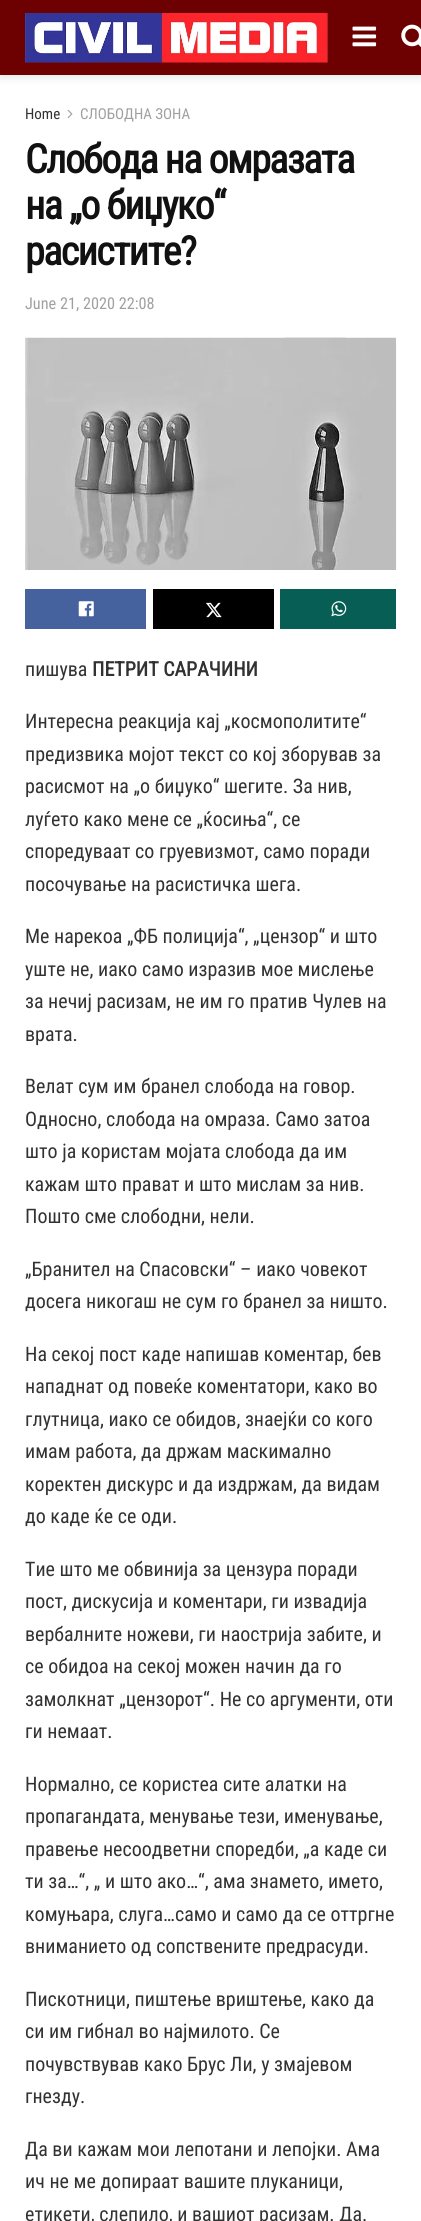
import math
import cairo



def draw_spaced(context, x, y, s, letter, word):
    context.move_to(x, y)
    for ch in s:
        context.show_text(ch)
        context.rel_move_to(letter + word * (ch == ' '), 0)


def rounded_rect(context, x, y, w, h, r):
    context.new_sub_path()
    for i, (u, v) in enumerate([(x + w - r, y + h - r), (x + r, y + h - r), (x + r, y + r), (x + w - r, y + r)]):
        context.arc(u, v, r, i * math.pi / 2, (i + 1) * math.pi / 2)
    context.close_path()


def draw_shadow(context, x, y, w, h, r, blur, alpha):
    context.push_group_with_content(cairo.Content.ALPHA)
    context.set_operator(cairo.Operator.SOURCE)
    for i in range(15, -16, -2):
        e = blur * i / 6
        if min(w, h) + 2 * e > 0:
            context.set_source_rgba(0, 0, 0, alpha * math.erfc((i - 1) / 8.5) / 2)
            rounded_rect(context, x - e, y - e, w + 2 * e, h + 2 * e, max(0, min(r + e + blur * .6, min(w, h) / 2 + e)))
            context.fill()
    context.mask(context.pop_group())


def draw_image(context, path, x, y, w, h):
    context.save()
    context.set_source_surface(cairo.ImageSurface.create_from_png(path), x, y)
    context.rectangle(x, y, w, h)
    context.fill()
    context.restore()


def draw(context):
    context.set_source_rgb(1, 1, 1)
    context.paint()
    context.set_source_rgb(0, 0, 0)
    draw_shadow(context, 0, 3, 421, 75, 0, 4, 0.1)
    context.set_source_rgb(109 / 255, 0, 0)
    context.rectangle(0, 0, 421, 75)
    context.fill()
    draw_image(context, "images/1.png", 25, 13, 303, 50)
    draw_image(context, "images/2.png", 352, 26, 25, 21)
    draw_image(context, "images/3.png", 401, 24, 20, 23)
    draw_image(context, "images/4.png", 67, 109, 6, 9)
    context.set_source_rgb(239 / 255, 239 / 255, 239 / 255)
    context.rectangle(285, 337, 61, 1)
    context.fill()
    draw_image(context, "images/5.png", 25, 337, 372, 233)
    context.set_source_rgb(69 / 255, 98 / 255, 159 / 255)
    context.rectangle(25, 589, 121, 40)
    context.fill()
    draw_image(context, "images/6.png", 78, 601, 16, 16)
    context.set_source_rgb(0, 0, 0)
    context.rectangle(153, 589, 121, 40)
    context.fill()
    draw_image(context, "images/7.png", 206, 602, 16, 16)
    context.set_source_rgb(7 / 255, 94 / 255, 84 / 255)
    context.rectangle(280, 589, 116, 40)
    context.fill()
    draw_image(context, "images/8.png", 331, 601, 16, 16)
    context.select_font_face("Roboto Condensed")
    context.set_font_size(15)
    context.set_source_rgb(50 / 255, 50 / 255, 50 / 255)
    context.move_to(25, 119)
    context.show_text("Home")
    context.set_source_rgb(160 / 255, 160 / 255, 160 / 255)
    context.move_to(80, 119)
    context.show_text("СЛОБОДНА ЗОНА")
    context.select_font_face("Roboto Condensed", cairo.FontSlant.NORMAL, cairo.FontWeight.BOLD)
    context.set_font_size(40)
    context.set_source_rgb(17 / 255, 17 / 255, 17 / 255)
    draw_spaced(context, 25, 173, "Слобода на омразата", -1.6, 0)
    draw_spaced(context, 25, 219, "на „о биџуко“", -1.6, 0)
    draw_spaced(context, 25, 265, "расистите?", -1.6, 0)
    context.select_font_face("Roboto Condensed")
    context.set_font_size(16.25)
    context.set_source_rgb(160 / 255, 160 / 255, 160 / 255)
    context.move_to(25, 309)
    context.show_text("June 21, 2020 22:08")
    context.set_font_size(20)
    context.set_source_rgb(50 / 255, 50 / 255, 50 / 255)
    context.move_to(25, 676)
    context.show_text("пишува")
    context.select_font_face("Roboto Condensed", cairo.FontSlant.NORMAL, cairo.FontWeight.BOLD)
    context.move_to(92, 676)
    context.show_text("ПЕТРИТ САРАЧИНИ")
    context.select_font_face("Roboto Condensed")
    context.move_to(25, 728)
    context.show_text("Интересна реакција кај „космополитите“")
    context.move_to(25, 761)
    context.show_text("предизвика мојот текст со кој зборував за")
    context.move_to(25, 793)
    context.show_text("расисмот на „о биџуко“ шегите. За нив,")
    context.move_to(25, 826)
    context.show_text("луѓето како мене се „ќосиња“, се")
    context.move_to(25, 858)
    context.show_text("споредуваат со груевизмот, само поради")
    context.move_to(25, 891)
    context.show_text("посочување на расистичка шега.")
    context.move_to(25, 943)
    context.show_text("Ме нарекоа „ФБ полиција“, „цензор“ и што")
    context.move_to(25, 976)
    context.show_text("уште не, иако само изразив мое мислење")
    context.move_to(25, 1008)
    context.show_text("за нечиј расизам, не им го пратив Чулев на")
    context.move_to(25, 1041)
    context.show_text("врата.")
    context.move_to(25, 1093)
    context.show_text("Велат сум им бранел слобода на говор.")
    context.move_to(25, 1126)
    context.show_text("Односно, слобода на омраза. Само затоа")
    context.move_to(25, 1158)
    context.show_text("што ја користам мојата слобода да им")
    context.move_to(25, 1191)
    context.show_text("кажам што прават и што мислам за нив.")
    context.move_to(25, 1223)
    context.show_text("Пошто сме слободни, нели.")
    context.move_to(25, 1276)
    context.show_text("„Бранител на Спасовски“ – иако човекот")
    context.move_to(25, 1308)
    context.show_text("досега никогаш не сум го бранел за ништо.")
    context.move_to(25, 1361)
    context.show_text("На секој пост каде напишав коментар, бев")
    context.move_to(25, 1393)
    context.show_text("нападнат од повеќе коментатори, како во")
    context.move_to(25, 1426)
    context.show_text("глутница, иако се обидов, знаејќи со кого")
    context.move_to(25, 1458)
    context.show_text("имам работа, да држам маскимално")
    context.move_to(25, 1491)
    context.show_text("коректен дискурс и да издржам, да видам")
    context.move_to(25, 1523)
    context.show_text("до каде ќе се оди.")
    context.move_to(25, 1576)
    context.show_text("Тие што ме обвинија за цензура поради")
    context.move_to(25, 1608)
    context.show_text("пост, дискусија и коментари, ги извадија")
    context.move_to(25, 1641)
    context.show_text("вербалните ножеви, ги наострија забите, и")
    context.move_to(25, 1673)
    context.show_text("се обидоа на секој можен начин да го")
    context.move_to(25, 1706)
    context.show_text("замолкнат „цензорот“. Не со аргументи, оти")
    context.move_to(25, 1738)
    context.show_text("ги немаат.")
    context.move_to(25, 1791)
    context.show_text("Нормално, се користеа сите алатки на")
    context.move_to(25, 1823)
    context.show_text("пропагандата, менување тези, именување,")
    context.move_to(25, 1856)
    context.show_text("правење несоодветни споредби, „а каде си")
    context.move_to(25, 1888)
    context.show_text("ти за…“, „ и што ако…“, ама знамето, името,")
    context.move_to(25, 1921)
    context.show_text("комуњара, слуга…само и само да се оттргне")
    context.move_to(25, 1953)
    context.show_text("вниманието од сопствените предрасуди.")
    context.move_to(25, 2006)
    context.show_text("Пискотници, пиштење вриштење, како да")
    context.move_to(25, 2038)
    context.show_text("си им гибнал во најмилото. Се")
    context.move_to(25, 2071)
    context.show_text("почувствував како Брус Ли, у змајевом")
    context.move_to(25, 2103)
    context.show_text("гнезду.")
    context.move_to(25, 2156)
    context.show_text("Да ви кажам мои лепотани и лепојки. Ама")
    context.move_to(25, 2188)
    context.show_text("ич не ме допираат вашите плуканици,")
    context.move_to(25, 2221)
    context.show_text("етикети, слепило, и вашиот расизам. Да.")


surface = cairo.ImageSurface(cairo.Format.RGB24, 421, 2221)
context = cairo.Context(surface)
options = cairo.FontOptions()
options.set_hint_metrics(cairo.HintMetrics.OFF)
options.set_hint_style(cairo.HintStyle.NONE)
context.set_font_options(options)
context.set_miter_limit(4)
draw(context)
surface.write_to_png("out.png")
